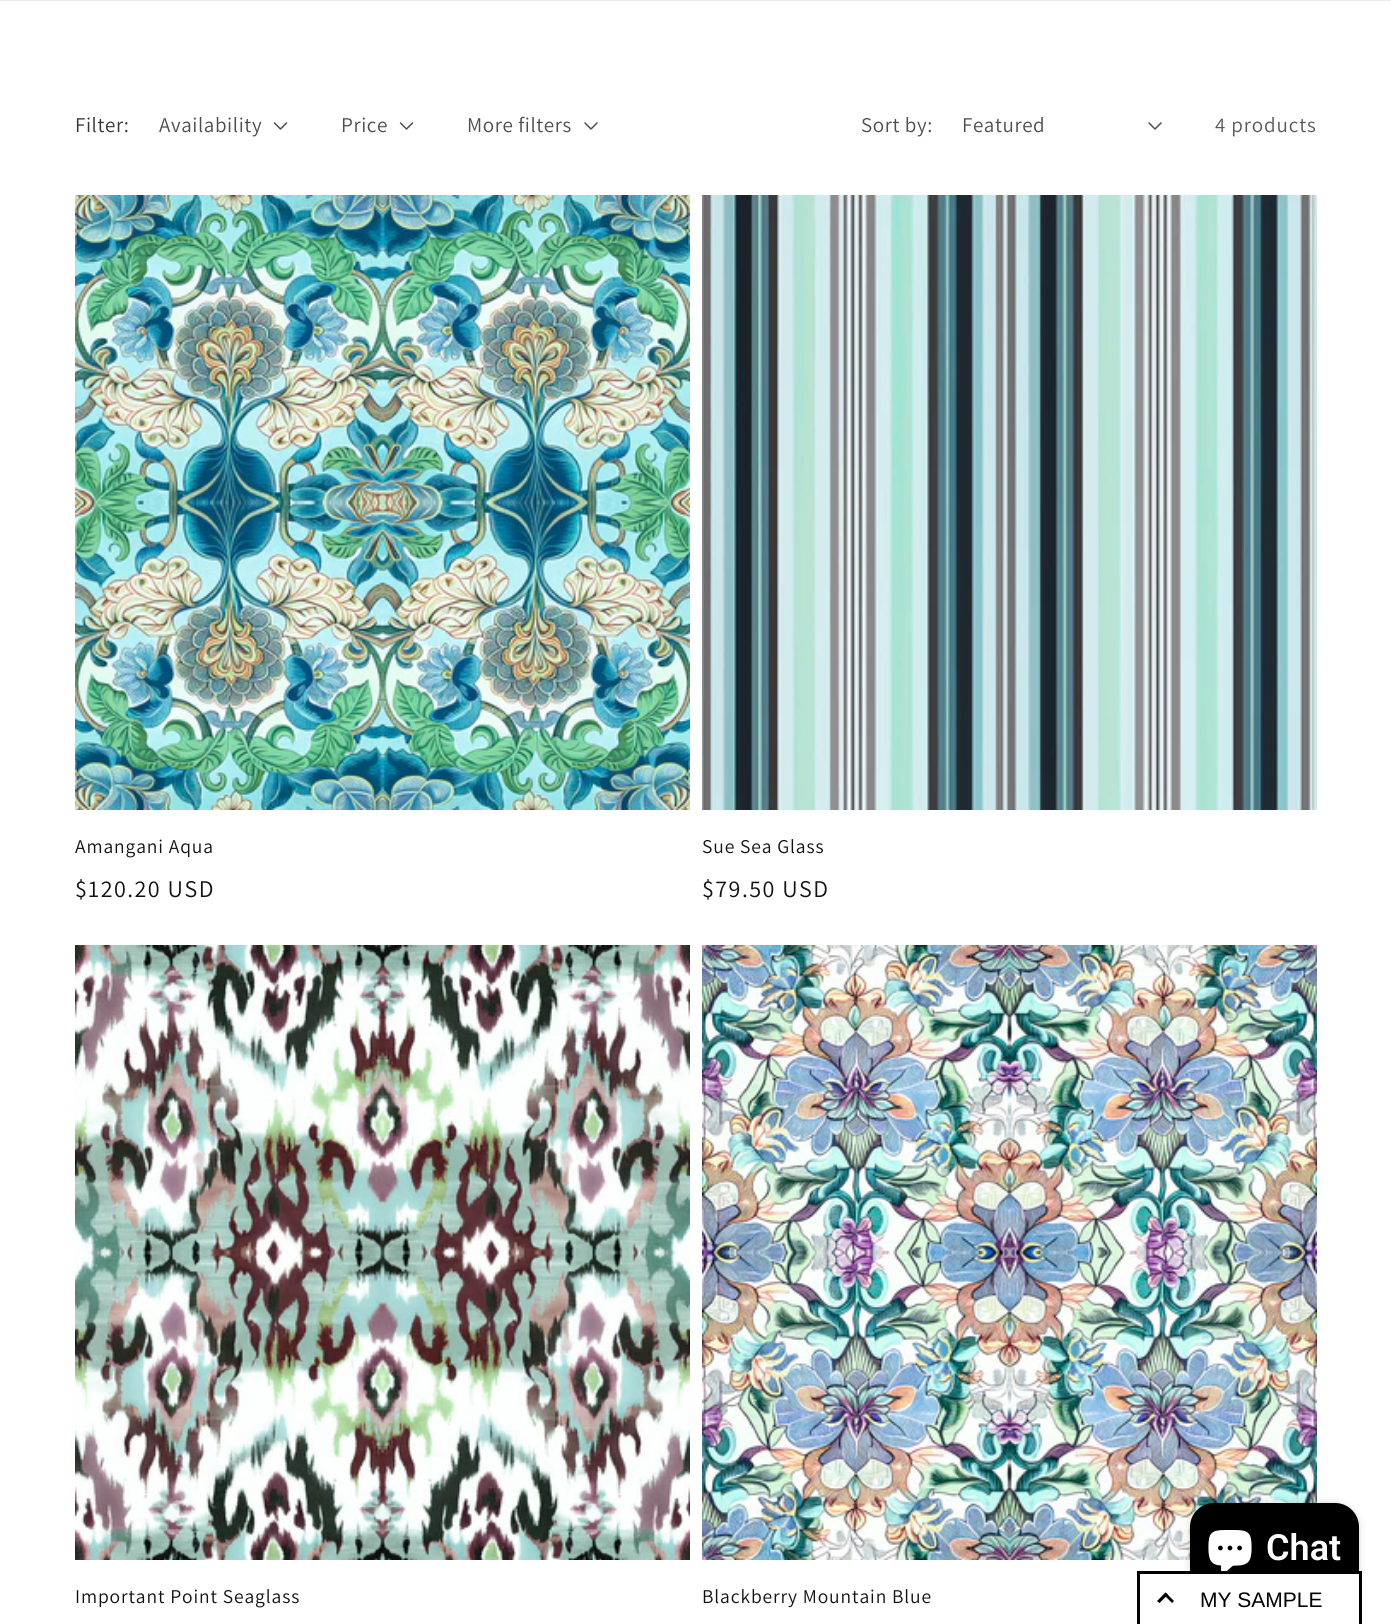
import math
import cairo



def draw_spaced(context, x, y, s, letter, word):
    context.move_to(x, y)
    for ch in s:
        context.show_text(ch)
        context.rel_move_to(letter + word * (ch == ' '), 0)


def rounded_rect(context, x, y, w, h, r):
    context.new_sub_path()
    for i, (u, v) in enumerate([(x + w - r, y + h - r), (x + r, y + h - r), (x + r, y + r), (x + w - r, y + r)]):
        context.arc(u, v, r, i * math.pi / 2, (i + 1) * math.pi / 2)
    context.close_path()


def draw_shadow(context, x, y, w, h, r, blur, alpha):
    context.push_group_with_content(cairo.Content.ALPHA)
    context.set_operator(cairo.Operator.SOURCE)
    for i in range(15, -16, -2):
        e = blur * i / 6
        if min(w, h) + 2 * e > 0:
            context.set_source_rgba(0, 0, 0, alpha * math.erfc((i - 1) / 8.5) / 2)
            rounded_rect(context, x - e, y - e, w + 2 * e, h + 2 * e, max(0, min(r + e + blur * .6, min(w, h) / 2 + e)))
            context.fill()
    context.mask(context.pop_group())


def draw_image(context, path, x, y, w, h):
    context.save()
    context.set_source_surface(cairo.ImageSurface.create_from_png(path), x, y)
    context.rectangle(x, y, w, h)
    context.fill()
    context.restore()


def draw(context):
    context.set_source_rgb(1, 1, 1)
    context.paint()
    context.set_source_rgb(236 / 255, 236 / 255, 236 / 255)
    context.rectangle(0, 0, 1391, 1)
    context.fill()
    draw_image(context, "images/1.png", 273, 122, 15, 8)
    draw_image(context, "images/1.png", 399, 122, 15, 8)
    draw_image(context, "images/2.png", 584, 122, 14, 8)
    draw_image(context, "images/2.png", 1148, 122, 14, 8)
    draw_image(context, "images/3.png", 75, 195, 615, 615)
    draw_image(context, "images/4.png", 702, 195, 615, 615)
    draw_image(context, "images/5.png", 75, 945, 615, 615)
    draw_image(context, "images/6.png", 702, 945, 615, 615)
    context.set_source_rgb(0, 0, 0)
    draw_shadow(context, 1190, 1503, 169, 90, 24, 4, 0.15)
    context.set_source_rgb(0, 0, 0)
    rounded_rect(context, 1190, 1503, 169, 90, 24)
    context.fill()
    draw_image(context, "images/7.png", 1208, 1530, 44, 41)
    context.set_source_rgb(1, 1, 1)
    context.rectangle(1185, 1574, 174, 25)
    context.fill()
    context.set_source_rgb(0, 0, 0)
    context.rectangle(1137, 1571, 225, 3)
    context.fill()
    context.rectangle(1359, 1571, 3, 53)
    context.fill()
    context.rectangle(1137, 1571, 3, 53)
    context.fill()
    context.new_path()
    context.move_to(1165.5, 1592.5)
    context.line_to(1174, 1601)
    context.line_to(1172, 1603)
    context.line_to(1163.5, 1594.5)
    context.close_path()
    context.fill()
    context.new_path()
    context.move_to(1165.5, 1592.5)
    context.line_to(1168, 1594.5)
    context.line_to(1159.5, 1603)
    context.line_to(1157, 1601)
    context.close_path()
    context.fill()
    context.select_font_face("Assistant")
    context.set_font_size(21)
    context.set_source_rgb(54 / 255, 54 / 255, 54 / 255)
    draw_spaced(context, 75, 132, "Filter:", 0.6, 0)
    context.set_source_rgb(77 / 255, 77 / 255, 77 / 255)
    draw_spaced(context, 159, 132, "Availability", 0.6, 0)
    draw_spaced(context, 341, 132, "Price", 0.6, 0)
    draw_spaced(context, 467, 132, "More filters", 0.6, 0)
    draw_spaced(context, 861, 132, "Sort by:", 0.6, 0)
    draw_spaced(context, 962, 132, "Featured", 0.6, 0)
    context.set_source_rgb(89 / 255, 89 / 255, 89 / 255)
    draw_spaced(context, 1215, 132, "4 products", 0.9, 0)
    context.set_font_size(19.5)
    context.set_source_rgb(18 / 255, 18 / 255, 18 / 255)
    draw_spaced(context, 75, 853, "Amangani Aqua", 0.9, 0)
    context.set_font_size(24)
    draw_spaced(context, 75, 897, "$120.20 USD", 1.5, 0)
    context.set_font_size(19.5)
    draw_spaced(context, 702, 853, "Sue Sea Glass", 0.9, 0)
    context.set_font_size(24)
    draw_spaced(context, 702, 897, "$79.50 USD", 1.5, 0)
    context.set_font_size(19.5)
    draw_spaced(context, 75, 1603, "Important Point Seaglass", 0.9, 0)
    draw_spaced(context, 702, 1603, "Blackberry Mountain Blue", 0.9, 0)
    context.select_font_face("Roboto SemiBold")
    context.set_font_size(36)
    context.set_source_rgb(1, 1, 1)
    context.move_to(1266, 1560)
    context.show_text("Chat")
    context.select_font_face("Liberation Sans")
    context.set_font_size(21)
    context.set_source_rgb(0, 0, 0)
    context.move_to(1200, 1607)
    context.show_text("MY SAMPLE")


surface = cairo.ImageSurface(cairo.Format.RGB24, 1391, 1624)
context = cairo.Context(surface)
options = cairo.FontOptions()
options.set_hint_metrics(cairo.HintMetrics.OFF)
options.set_hint_style(cairo.HintStyle.NONE)
context.set_font_options(options)
context.set_miter_limit(4)
draw(context)
surface.write_to_png("out.png")
